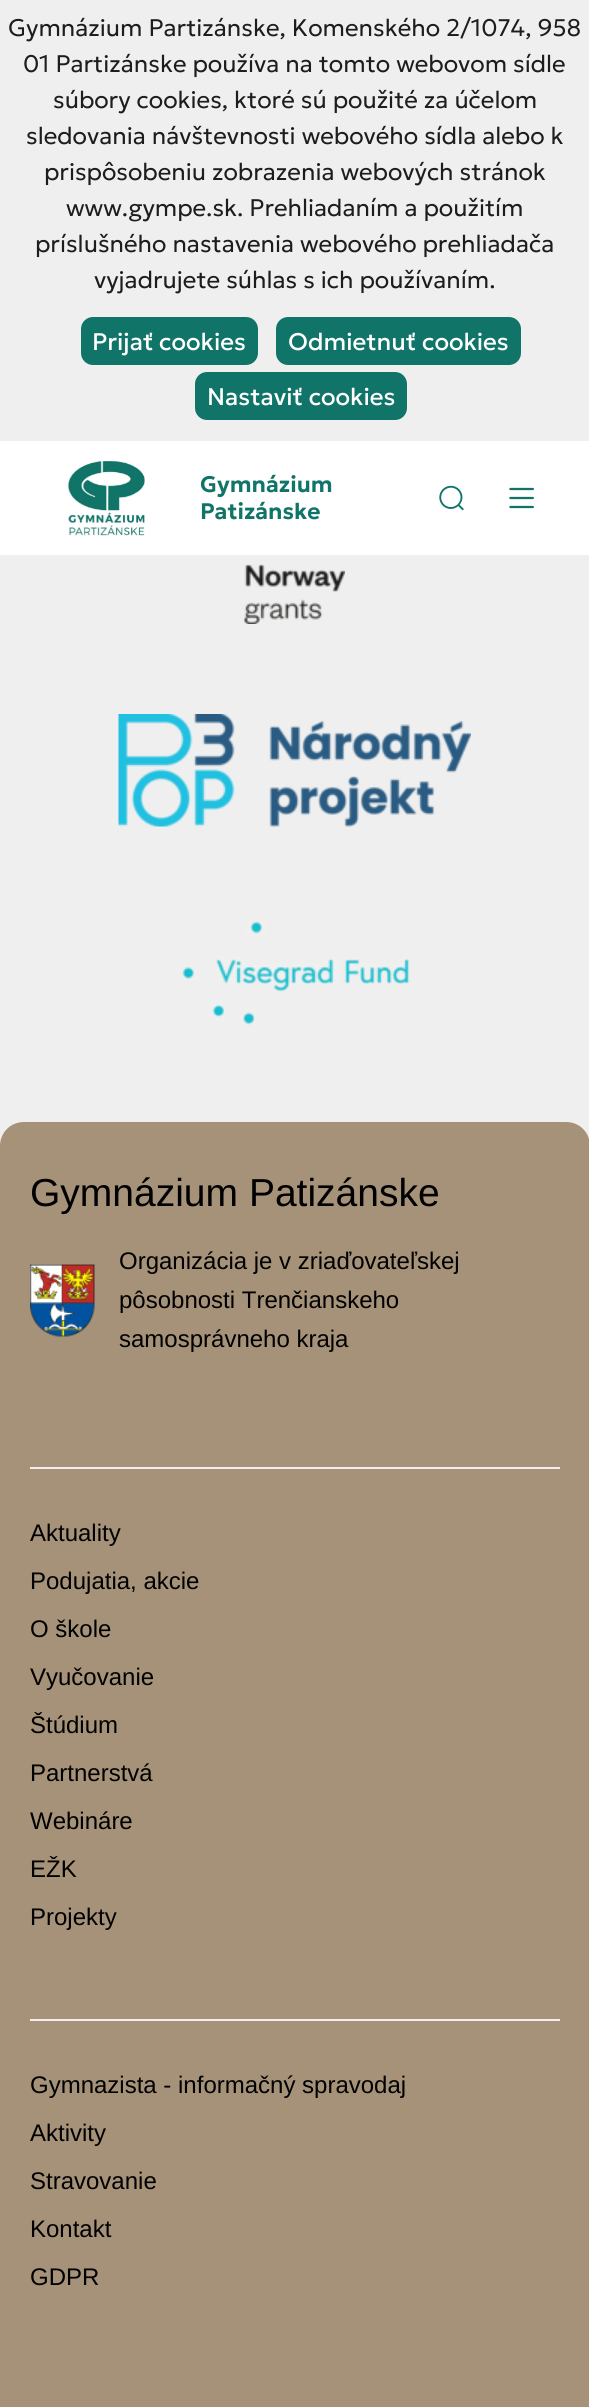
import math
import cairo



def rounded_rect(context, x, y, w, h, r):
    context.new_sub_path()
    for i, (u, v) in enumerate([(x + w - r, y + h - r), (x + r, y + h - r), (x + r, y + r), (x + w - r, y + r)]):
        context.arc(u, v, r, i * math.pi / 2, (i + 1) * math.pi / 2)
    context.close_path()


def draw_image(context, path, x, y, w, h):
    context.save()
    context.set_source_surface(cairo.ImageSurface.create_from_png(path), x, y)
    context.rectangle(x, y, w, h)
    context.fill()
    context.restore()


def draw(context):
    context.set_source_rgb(239 / 255, 239 / 255, 239 / 255)
    context.paint()
    context.set_source_rgb(16 / 255, 116 / 255, 104 / 255)
    rounded_rect(context, 81, 317, 177, 48, 12)
    context.fill()
    rounded_rect(context, 276, 317, 245, 48, 12)
    context.fill()
    rounded_rect(context, 195, 372, 212, 48, 12)
    context.fill()
    context.set_source_rgb(1, 1, 1)
    context.rectangle(0, 441, 589, 114)
    context.fill()
    draw_image(context, "images/1.png", 67, 461, 78, 75)
    draw_image(context, "images/2.png", 439, 485, 25, 26)
    draw_image(context, "images/3.png", 509, 487, 25, 22)
    draw_image(context, "images/4.png", 244, 564, 101, 60)
    draw_image(context, "images/5.png", 118, 714, 353, 113)
    draw_image(context, "images/6.png", 182, 921, 228, 104)
    context.set_source_rgb(165 / 255, 146 / 255, 120 / 255)
    context.new_path()
    context.move_to(24, 1122)
    context.line_to(566, 1122)
    context.curve_to(579.5, 1122, 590, 1132.5, 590, 1146)
    context.line_to(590, 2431)
    context.line_to(0, 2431)
    context.line_to(0, 1146)
    context.curve_to(0, 1132.5, 10.5, 1122, 24, 1122)
    context.close_path()
    context.fill()
    draw_image(context, "images/7.png", 30, 1264, 65, 73)
    context.set_source_rgb(239 / 255, 239 / 255, 239 / 255)
    context.rectangle(30, 1467, 530, 2)
    context.fill()
    context.rectangle(30, 2019, 530, 2)
    context.fill()
    context.select_font_face("Geologica Light")
    context.set_font_size(24)
    context.set_source_rgb(29 / 255, 29 / 255, 27 / 255)
    context.move_to(8, 36)
    context.show_text("Gymnázium Partizánske, Komenského 2/1074, 958")
    context.move_to(23, 72)
    context.show_text("01 Partizánske používa na tomto webovom sídle")
    context.move_to(53, 108)
    context.show_text("súbory cookies, ktoré sú použité za účelom")
    context.move_to(26, 144)
    context.show_text("sledovania návštevnosti webového sídla alebo k")
    context.move_to(44, 180)
    context.show_text("prispôsobeniu zobrazenia webových stránok")
    context.move_to(66, 216)
    context.show_text("www.gympe.sk. Prehliadaním a použitím")
    context.move_to(35, 252)
    context.show_text("príslušného nastavenia webového prehliadača")
    context.move_to(94, 288)
    context.show_text("vyjadrujete súhlas s ich používaním.")
    context.select_font_face("Geologica")
    context.set_source_rgb(1, 1, 1)
    context.move_to(92, 350)
    context.show_text("Prijať cookies")
    context.move_to(288, 350)
    context.show_text("Odmietnuť cookies")
    context.move_to(207, 405)
    context.show_text("Nastaviť cookies")
    context.select_font_face("Geologica SemiBold")
    context.set_font_size(22.5)
    context.set_source_rgb(16 / 255, 116 / 255, 104 / 255)
    context.move_to(200, 492)
    context.show_text("Gymnázium")
    context.move_to(200, 519)
    context.show_text("Patizánske")
    context.select_font_face("Liberation Sans")
    context.set_font_size(39)
    context.set_source_rgb(0, 0, 0)
    context.move_to(30, 1206)
    context.show_text("Gymnázium Patizánske")
    context.set_font_size(24)
    context.move_to(119, 1269)
    context.show_text("Organizácia je v zriaďovateľskej")
    context.move_to(119, 1308)
    context.show_text("pôsobnosti Trenčianskeho")
    context.move_to(119, 1347)
    context.show_text("samosprávneho kraja")
    context.move_to(30, 1541)
    context.show_text("Aktuality")
    context.move_to(30, 1589)
    context.show_text("Podujatia, akcie")
    context.move_to(30, 1637)
    context.show_text("O škole")
    context.move_to(30, 1685)
    context.show_text("Vyučovanie")
    context.move_to(30, 1733)
    context.show_text("Štúdium")
    context.move_to(30, 1781)
    context.show_text("Partnerstvá")
    context.move_to(30, 1829)
    context.show_text("Webináre")
    context.move_to(30, 1877)
    context.show_text("EŽK")
    context.move_to(30, 1925)
    context.show_text("Projekty")
    context.move_to(30, 2093)
    context.show_text("Gymnazista - informačný spravodaj")
    context.move_to(30, 2141)
    context.show_text("Aktivity")
    context.move_to(30, 2189)
    context.show_text("Stravovanie")
    context.move_to(30, 2237)
    context.show_text("Kontakt")
    context.move_to(30, 2285)
    context.show_text("GDPR")


surface = cairo.ImageSurface(cairo.Format.RGB24, 589, 2407)
context = cairo.Context(surface)
options = cairo.FontOptions()
options.set_hint_metrics(cairo.HintMetrics.OFF)
options.set_hint_style(cairo.HintStyle.NONE)
context.set_font_options(options)
context.set_miter_limit(4)
draw(context)
surface.write_to_png("out.png")
